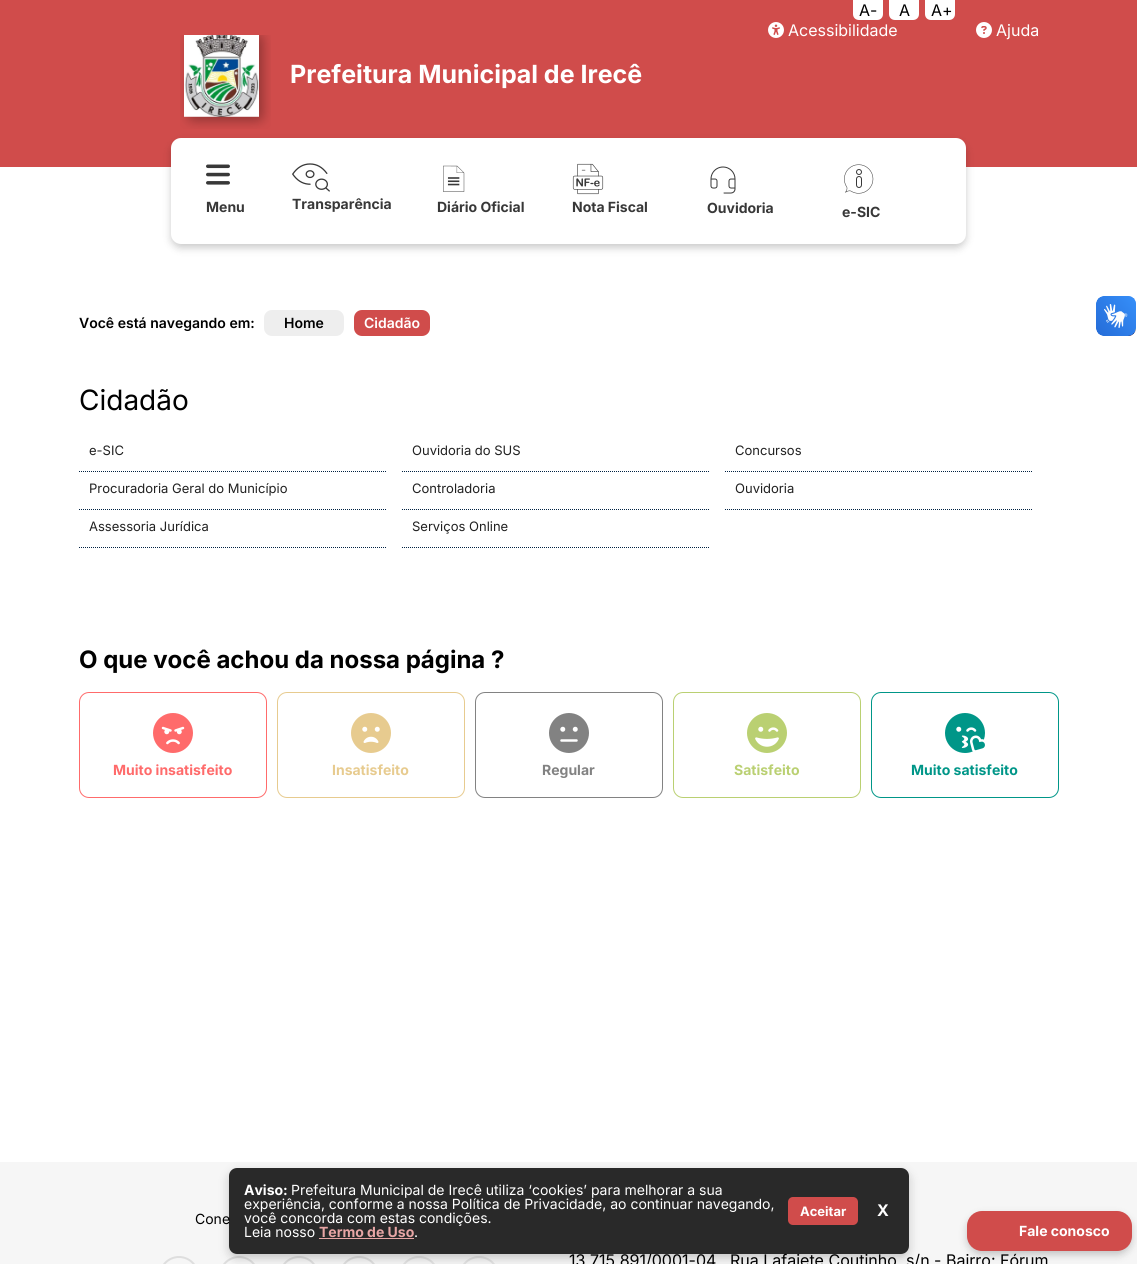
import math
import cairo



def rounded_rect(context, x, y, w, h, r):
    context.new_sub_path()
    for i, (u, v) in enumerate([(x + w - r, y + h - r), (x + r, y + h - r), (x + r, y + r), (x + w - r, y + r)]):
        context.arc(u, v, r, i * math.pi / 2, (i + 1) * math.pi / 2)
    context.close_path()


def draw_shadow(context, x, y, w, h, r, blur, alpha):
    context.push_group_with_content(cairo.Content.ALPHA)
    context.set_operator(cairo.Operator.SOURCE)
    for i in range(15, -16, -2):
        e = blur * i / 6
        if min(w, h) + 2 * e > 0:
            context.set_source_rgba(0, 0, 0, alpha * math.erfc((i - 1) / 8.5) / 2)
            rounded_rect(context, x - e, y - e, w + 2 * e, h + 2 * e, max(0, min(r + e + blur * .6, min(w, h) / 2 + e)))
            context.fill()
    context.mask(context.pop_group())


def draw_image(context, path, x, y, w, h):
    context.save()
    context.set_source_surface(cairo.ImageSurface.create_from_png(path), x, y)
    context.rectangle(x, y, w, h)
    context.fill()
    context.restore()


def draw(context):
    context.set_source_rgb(1, 1, 1)
    context.paint()
    context.set_source_rgb(208 / 255, 76 / 255, 75 / 255)
    context.rectangle(0, 0, 1137, 167)
    context.fill()
    context.set_source_rgb(1, 1, 1)
    context.new_path()
    context.move_to(853, 0)
    context.line_to(883, 0)
    context.line_to(883, 14)
    context.curve_to(883, 17.5, 880.5, 20, 877, 20)
    context.line_to(859, 20)
    context.curve_to(855.5, 20, 853, 17.5, 853, 14)
    context.close_path()
    context.fill()
    context.new_path()
    context.move_to(889, 0)
    context.line_to(919, 0)
    context.line_to(919, 14)
    context.curve_to(919, 17.5, 916.5, 20, 913, 20)
    context.line_to(895, 20)
    context.curve_to(891.5, 20, 889, 17.5, 889, 14)
    context.close_path()
    context.fill()
    context.new_path()
    context.move_to(925, 0)
    context.line_to(955, 0)
    context.line_to(955, 14)
    context.curve_to(955, 17.5, 952.5, 20, 949, 20)
    context.line_to(931, 20)
    context.curve_to(927.5, 20, 925, 17.5, 925, 14)
    context.close_path()
    context.fill()
    draw_image(context, "images/1.png", 768, 22, 16, 16)
    draw_image(context, "images/2.png", 976, 22, 16, 16)
    draw_image(context, "images/3.png", 180, 35, 91, 94)
    context.set_source_rgb(0, 0, 0)
    draw_shadow(context, 171, 142, 795, 106, 10, 4, 0.2)
    context.set_source_rgb(1, 1, 1)
    rounded_rect(context, 171, 138, 795, 106, 10)
    context.fill()
    draw_image(context, "images/4.png", 206, 164, 24, 21)
    draw_image(context, "images/5.png", 292, 163, 38, 29)
    draw_image(context, "images/6.png", 443, 165, 22, 27)
    draw_image(context, "images/7.png", 572, 163, 32, 32)
    draw_image(context, "images/8.png", 710, 166, 26, 28)
    draw_image(context, "images/9.png", 844, 164, 30, 30)
    context.set_source_rgb(246 / 255, 246 / 255, 246 / 255)
    context.rectangle(0, 1162, 1137, 102)
    context.fill()
    context.set_source_rgb(0, 0, 0)
    draw_shadow(context, 967, 1215, 165, 40, 15, 4, 0.2)
    context.set_source_rgb(208 / 255, 76 / 255, 75 / 255)
    rounded_rect(context, 967, 1211, 165, 40, 15)
    context.fill()
    draw_image(context, "images/10.png", 1096, 296, 40, 40)
    draw_image(context, "images/11.png", 1096, 296, 40, 40)
    context.set_source_rgb(238 / 255, 238 / 255, 238 / 255)
    rounded_rect(context, 264, 310, 80, 26, 8)
    context.fill()
    context.set_source_rgb(208 / 255, 76 / 255, 75 / 255)
    rounded_rect(context, 354, 310, 76, 26, 8)
    context.fill()
    context.new_path()
    context.move_to(79, 471.5)
    context.line_to(387, 471.5)
    context.set_source_rgb(0, 33 / 255, 66 / 255)
    context.set_line_width(1)
    context.set_dash([1, 1])
    context.stroke()
    context.new_path()
    context.move_to(402, 471.5)
    context.line_to(710, 471.5)
    context.stroke()
    context.new_path()
    context.move_to(725, 471.5)
    context.line_to(1033, 471.5)
    context.stroke()
    context.new_path()
    context.move_to(79, 509.5)
    context.line_to(387, 509.5)
    context.stroke()
    context.new_path()
    context.move_to(402, 509.5)
    context.line_to(710, 509.5)
    context.stroke()
    context.new_path()
    context.move_to(725, 509.5)
    context.line_to(1033, 509.5)
    context.stroke()
    context.new_path()
    context.move_to(79, 547.5)
    context.line_to(387, 547.5)
    context.stroke()
    context.new_path()
    context.move_to(402, 547.5)
    context.line_to(710, 547.5)
    context.stroke()
    rounded_rect(context, 79.5, 692.5, 187, 105, 9.5)
    context.set_source_rgb(1, 107 / 255, 107 / 255)
    context.set_dash([])
    context.stroke()
    draw_image(context, "images/12.png", 153, 713, 40, 40)
    rounded_rect(context, 277.5, 692.5, 187, 105, 9.5)
    context.set_source_rgb(231 / 255, 203 / 255, 143 / 255)
    context.stroke()
    draw_image(context, "images/13.png", 351, 713, 40, 40)
    rounded_rect(context, 475.5, 692.5, 187, 105, 9.5)
    context.set_source_rgb(130 / 255, 130 / 255, 130 / 255)
    context.stroke()
    draw_image(context, "images/14.png", 549, 713, 40, 40)
    rounded_rect(context, 673.5, 692.5, 187, 105, 9.5)
    context.set_source_rgb(186 / 255, 208 / 255, 114 / 255)
    context.stroke()
    draw_image(context, "images/15.png", 747, 713, 40, 40)
    rounded_rect(context, 871.5, 692.5, 187, 105, 9.5)
    context.set_source_rgb(0, 150 / 255, 136 / 255)
    context.stroke()
    draw_image(context, "images/16.png", 945, 713, 40, 40)
    rounded_rect(context, 220, 1257, 38, 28, 19)
    context.set_source_rgb(222 / 255, 222 / 255, 222 / 255)
    context.set_line_width(2)
    context.stroke()
    rounded_rect(context, 280, 1257, 38, 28, 19)
    context.stroke()
    rounded_rect(context, 340, 1257, 38, 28, 19)
    context.stroke()
    rounded_rect(context, 400, 1257, 38, 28, 19)
    context.set_source_rgb(226 / 255, 226 / 255, 226 / 255)
    context.stroke()
    rounded_rect(context, 460, 1257, 38, 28, 19)
    context.stroke()
    context.save()
    context.set_fill_rule(cairo.FillRule.EVEN_ODD)
    context.new_path()
    context.move_to(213, 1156)
    context.line_to(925, 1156)
    context.line_to(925, 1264)
    context.line_to(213, 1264)
    context.close_path()
    context.move_to(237, 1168)
    context.line_to(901, 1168)
    context.curve_to(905.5, 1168, 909, 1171.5, 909, 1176)
    context.line_to(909, 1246)
    context.curve_to(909, 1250.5, 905.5, 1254, 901, 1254)
    context.line_to(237, 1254)
    context.curve_to(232.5, 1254, 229, 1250.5, 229, 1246)
    context.line_to(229, 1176)
    context.curve_to(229, 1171.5, 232.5, 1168, 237, 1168)
    context.close_path()
    context.clip()
    context.set_source_rgb(0, 0, 0)
    draw_shadow(context, 229, 1172, 680, 86, 8, 5, 0.2)
    context.restore()
    rounded_rect(context, 160, 1257, 38, 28, 19)
    context.set_source_rgb(222 / 255, 222 / 255, 222 / 255)
    context.stroke()
    context.select_font_face("Inter")
    context.set_font_size(16)
    context.set_source_rgb(0, 0, 0)
    context.move_to(859, 16)
    context.show_text("A-")
    context.move_to(899, 16)
    context.show_text("A")
    context.move_to(931, 16)
    context.show_text("A+")
    context.set_source_rgb(1, 1, 1)
    context.move_to(788, 36)
    context.show_text("Acessibilidade")
    context.move_to(996, 36)
    context.show_text("Ajuda")
    context.select_font_face("Inter", cairo.FontSlant.NORMAL, cairo.FontWeight.BOLD)
    context.set_font_size(25)
    context.move_to(290, 83)
    context.show_text("Prefeitura Municipal de Irecê")
    context.set_font_size(14)
    context.set_source_rgb(56 / 255, 56 / 255, 56 / 255)
    context.move_to(206, 212)
    context.show_text("Menu")
    context.move_to(292, 209)
    context.show_text("Transparência")
    context.move_to(437, 212)
    context.show_text("Diário Oficial")
    context.move_to(572, 212)
    context.show_text("Nota Fiscal")
    context.move_to(707, 213)
    context.show_text("Ouvidoria")
    context.move_to(842, 217)
    context.show_text("e-SIC")
    context.set_source_rgb(1, 1, 1)
    context.move_to(1019, 1236)
    context.show_text("Fale conosco")
    context.select_font_face("Inter SemiBold")
    context.set_source_rgb(0, 0, 0)
    context.move_to(79, 328)
    context.show_text("Você está navegando em:")
    context.move_to(284, 328)
    context.show_text("Home")
    context.set_source_rgb(1, 1, 1)
    context.move_to(364, 328)
    context.show_text("Cidadão")
    context.select_font_face("Inter")
    context.set_font_size(28)
    context.set_source_rgb(0, 0, 0)
    context.move_to(79, 410)
    context.show_text("Cidadão")
    context.set_font_size(13)
    context.set_source_rgb(33 / 255, 33 / 255, 33 / 255)
    context.move_to(89, 455)
    context.show_text("e-SIC")
    context.move_to(412, 455)
    context.show_text("Ouvidoria do SUS")
    context.move_to(735, 455)
    context.show_text("Concursos")
    context.move_to(89, 493)
    context.show_text("Procuradoria Geral do Município")
    context.move_to(412, 493)
    context.show_text("Controladoria")
    context.move_to(735, 493)
    context.show_text("Ouvidoria")
    context.move_to(89, 531)
    context.show_text("Assessoria Jurídica")
    context.move_to(412, 531)
    context.show_text("Serviços Online")
    context.select_font_face("Inter", cairo.FontSlant.NORMAL, cairo.FontWeight.BOLD)
    context.set_font_size(24)
    context.set_source_rgb(0, 0, 0)
    context.move_to(79, 668)
    context.show_text("O que você achou da nossa página ?")
    context.set_font_size(14)
    context.set_source_rgb(1, 107 / 255, 107 / 255)
    context.move_to(113, 775)
    context.show_text("Muito insatisfeito")
    context.set_source_rgb(231 / 255, 203 / 255, 143 / 255)
    context.move_to(332, 775)
    context.show_text("Insatisfeito")
    context.set_source_rgb(130 / 255, 130 / 255, 130 / 255)
    context.move_to(542, 775)
    context.show_text("Regular")
    context.set_source_rgb(186 / 255, 208 / 255, 114 / 255)
    context.move_to(734, 775)
    context.show_text("Satisfeito")
    context.set_source_rgb(0, 150 / 255, 136 / 255)
    context.move_to(911, 775)
    context.show_text("Muito satisfeito")
    context.select_font_face("Inter")
    context.set_source_rgb(0, 0, 0)
    context.move_to(195, 1224)
    context.show_text("Cone")
    context.set_font_size(16)
    context.move_to(569, 1266)
    context.show_text("13.715.891/0001-04")
    context.move_to(730, 1266)
    context.show_text("Rua Lafaiete Coutinho, s/n - Bairro: Fórum")
    context.set_source_rgba(0, 0, 0, 0.83)
    rounded_rect(context, 229, 1168, 680, 86, 8)
    context.fill()
    context.select_font_face("Inter", cairo.FontSlant.NORMAL, cairo.FontWeight.BOLD)
    context.set_source_rgb(1, 1, 1)
    context.move_to(877, 1216)
    context.show_text("X")
    context.set_source_rgb(208 / 255, 76 / 255, 75 / 255)
    rounded_rect(context, 788, 1197, 70, 28, 5)
    context.fill()
    context.set_font_size(13)
    context.set_source_rgb(1, 1, 1)
    context.move_to(800, 1216)
    context.show_text("Aceitar")
    context.select_font_face("Inter")
    context.set_font_size(14)
    context.move_to(414, 1237)
    context.show_text(".")
    context.select_font_face("Inter", cairo.FontSlant.NORMAL, cairo.FontWeight.BOLD)
    context.set_source_rgb(232 / 255, 166 / 255, 165 / 255)
    context.move_to(319, 1237)
    context.show_text("Termo de Uso")
    context.rectangle(319, 1238, 95, 1)
    context.fill()
    context.select_font_face("Inter")
    context.set_source_rgb(1, 1, 1)
    context.move_to(244, 1237)
    context.show_text("Leia nosso")
    context.move_to(244, 1223)
    context.show_text("você concorda com estas condições.")
    context.move_to(244, 1209)
    context.show_text("experiência, conforme a nossa Política de Privacidade, ao continuar navegando,")
    context.move_to(291, 1195)
    context.show_text("Prefeitura Municipal de Irecê utiliza ‘cookies’ para melhorar a sua")
    context.select_font_face("Inter", cairo.FontSlant.NORMAL, cairo.FontWeight.BOLD)
    context.move_to(244, 1195)
    context.show_text("Aviso:")


surface = cairo.ImageSurface(cairo.Format.RGB24, 1137, 1264)
context = cairo.Context(surface)
options = cairo.FontOptions()
options.set_hint_metrics(cairo.HintMetrics.OFF)
options.set_hint_style(cairo.HintStyle.NONE)
context.set_font_options(options)
context.set_miter_limit(4)
draw(context)
surface.write_to_png("out.png")
